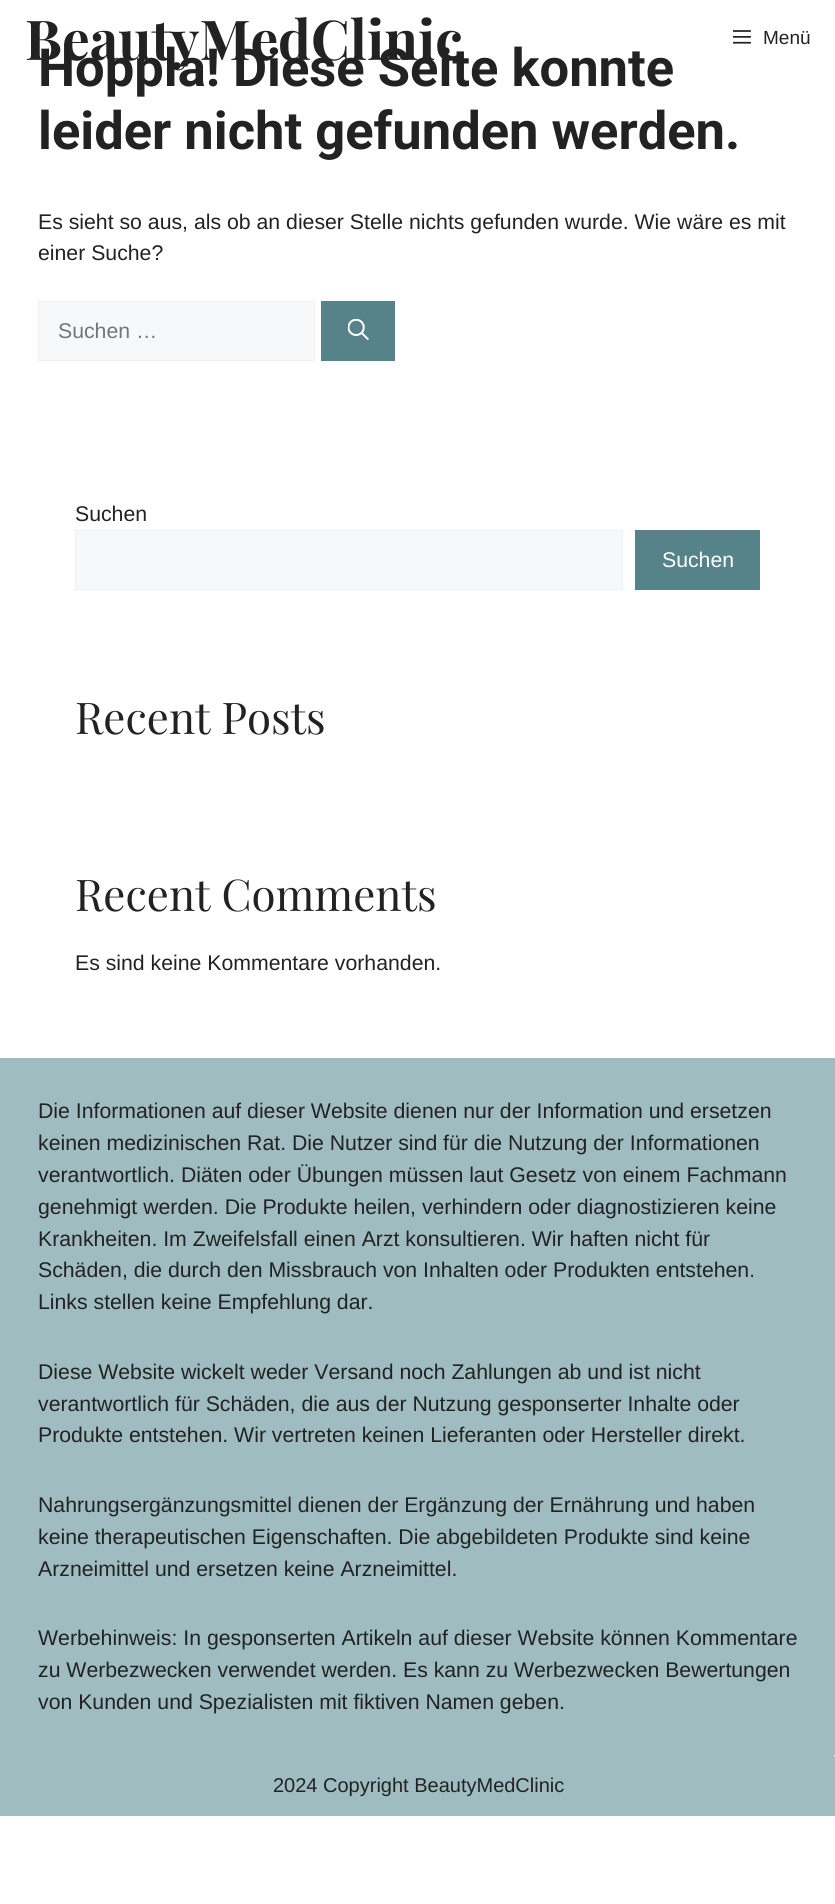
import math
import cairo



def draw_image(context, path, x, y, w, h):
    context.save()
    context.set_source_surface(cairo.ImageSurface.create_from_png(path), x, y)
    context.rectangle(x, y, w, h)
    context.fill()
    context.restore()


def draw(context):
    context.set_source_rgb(1, 1, 1)
    context.paint()
    draw_image(context, "images/1.png", 733, 30, 18, 14)
    context.set_source_rgb(247 / 255, 248 / 255, 249 / 255)
    context.rectangle(38.5, 301.5, 276, 59)
    context.fill_preserve()
    context.set_source_rgb(240 / 255, 240 / 255, 240 / 255)
    context.set_line_width(1)
    context.stroke()
    context.set_source_rgb(86 / 255, 131 / 255, 137 / 255)
    context.rectangle(321, 301, 74, 60)
    context.fill()
    draw_image(context, "images/2.png", 348, 319, 21, 21)
    context.set_source_rgb(247 / 255, 248 / 255, 249 / 255)
    context.rectangle(75.5, 530.5, 547, 59)
    context.fill_preserve()
    context.set_source_rgb(240 / 255, 240 / 255, 240 / 255)
    context.stroke()
    context.set_source_rgb(86 / 255, 131 / 255, 137 / 255)
    context.rectangle(635, 530, 125, 60)
    context.fill()
    context.set_source_rgb(159 / 255, 188 / 255, 192 / 255)
    context.rectangle(0, 1058, 835, 697)
    context.fill()
    context.new_path()
    context.move_to(0, 1755)
    context.line_to(832.5, 1755)
    context.curve_to(834, 1755, 835, 1756, 835, 1757.5)
    context.line_to(835, 1816)
    context.line_to(0, 1816)
    context.close_path()
    context.fill()
    context.select_font_face("Liberation Sans")
    context.set_font_size(19)
    context.set_source_rgb(34 / 255, 34 / 255, 34 / 255)
    context.move_to(763, 44)
    context.show_text("Menü")
    context.select_font_face("Roboto", cairo.FontSlant.NORMAL, cairo.FontWeight.BOLD)
    context.set_font_size(52.5)
    context.move_to(38, 86)
    context.show_text("Hoppla! Diese Seite konnte")
    context.select_font_face("Playfair Display", cairo.FontSlant.NORMAL, cairo.FontWeight.BOLD)
    context.set_font_size(55)
    context.move_to(25, 60)
    context.show_text("BeautyMedClinic")
    context.select_font_face("Roboto", cairo.FontSlant.NORMAL, cairo.FontWeight.BOLD)
    context.set_font_size(52.5)
    context.move_to(38, 149)
    context.show_text("leider nicht gefunden werden.")
    context.select_font_face("Liberation Sans")
    context.set_font_size(21.25)
    context.move_to(38, 229)
    context.show_text("Es sieht so aus, als ob an dieser Stelle nichts gefunden wurde. Wie wäre es mit")
    context.move_to(38, 260)
    context.show_text("einer Suche?")
    context.set_source_rgb(117 / 255, 117 / 255, 117 / 255)
    context.move_to(58, 338)
    context.show_text("Suchen …")
    context.set_source_rgb(34 / 255, 34 / 255, 34 / 255)
    context.move_to(75, 521)
    context.show_text("Suchen")
    context.set_source_rgb(1, 1, 1)
    context.move_to(662, 567)
    context.show_text("Suchen")
    context.select_font_face("Playfair Display")
    context.set_font_size(43.75)
    context.set_source_rgb(34 / 255, 34 / 255, 34 / 255)
    context.move_to(75, 734)
    context.show_text("Recent Posts")
    context.move_to(75, 911)
    context.show_text("Recent Comments")
    context.select_font_face("Liberation Sans")
    context.set_font_size(21.25)
    context.move_to(75, 970)
    context.show_text("Es sind keine Kommentare vorhanden.")
    context.move_to(38, 1118)
    context.show_text("Die Informationen auf dieser Website dienen nur der Information und ersetzen")
    context.move_to(38, 1150)
    context.show_text("keinen medizinischen Rat. Die Nutzer sind für die Nutzung der Informationen")
    context.move_to(38, 1182)
    context.show_text("verantwortlich. Diäten oder Übungen müssen laut Gesetz von einem Fachmann")
    context.move_to(38, 1214)
    context.show_text("genehmigt werden. Die Produkte heilen, verhindern oder diagnostizieren keine")
    context.move_to(38, 1246)
    context.show_text("Krankheiten. Im Zweifelsfall einen Arzt konsultieren. Wir haften nicht für")
    context.move_to(38, 1277)
    context.show_text("Schäden, die durch den Missbrauch von Inhalten oder Produkten entstehen.")
    context.move_to(38, 1309)
    context.show_text("Links stellen keine Empfehlung dar.")
    context.move_to(38, 1379)
    context.show_text("Diese Website wickelt weder Versand noch Zahlungen ab und ist nicht")
    context.move_to(38, 1411)
    context.show_text("verantwortlich für Schäden, die aus der Nutzung gesponserter Inhalte oder")
    context.move_to(38, 1442)
    context.show_text("Produkte entstehen. Wir vertreten keinen Lieferanten oder Hersteller direkt.")
    context.move_to(38, 1512)
    context.show_text("Nahrungsergänzungsmittel dienen der Ergänzung der Ernährung und haben")
    context.move_to(38, 1544)
    context.show_text("keine therapeutischen Eigenschaften. Die abgebildeten Produkte sind keine")
    context.move_to(38, 1576)
    context.show_text("Arzneimittel und ersetzen keine Arzneimittel.")
    context.move_to(38, 1645)
    context.show_text("Werbehinweis: In gesponserten Artikeln auf dieser Website können Kommentare")
    context.move_to(38, 1677)
    context.show_text("zu Werbezwecken verwendet werden. Es kann zu Werbezwecken Bewertungen")
    context.move_to(38, 1709)
    context.show_text("von Kunden und Spezialisten mit fiktiven Namen geben.")
    context.set_font_size(20)
    context.move_to(273, 1792)
    context.show_text("2024 Copyright BeautyMedClinic")


surface = cairo.ImageSurface(cairo.Format.RGB24, 835, 1904)
context = cairo.Context(surface)
options = cairo.FontOptions()
options.set_hint_metrics(cairo.HintMetrics.OFF)
options.set_hint_style(cairo.HintStyle.NONE)
context.set_font_options(options)
context.set_miter_limit(4)
draw(context)
surface.write_to_png("out.png")
